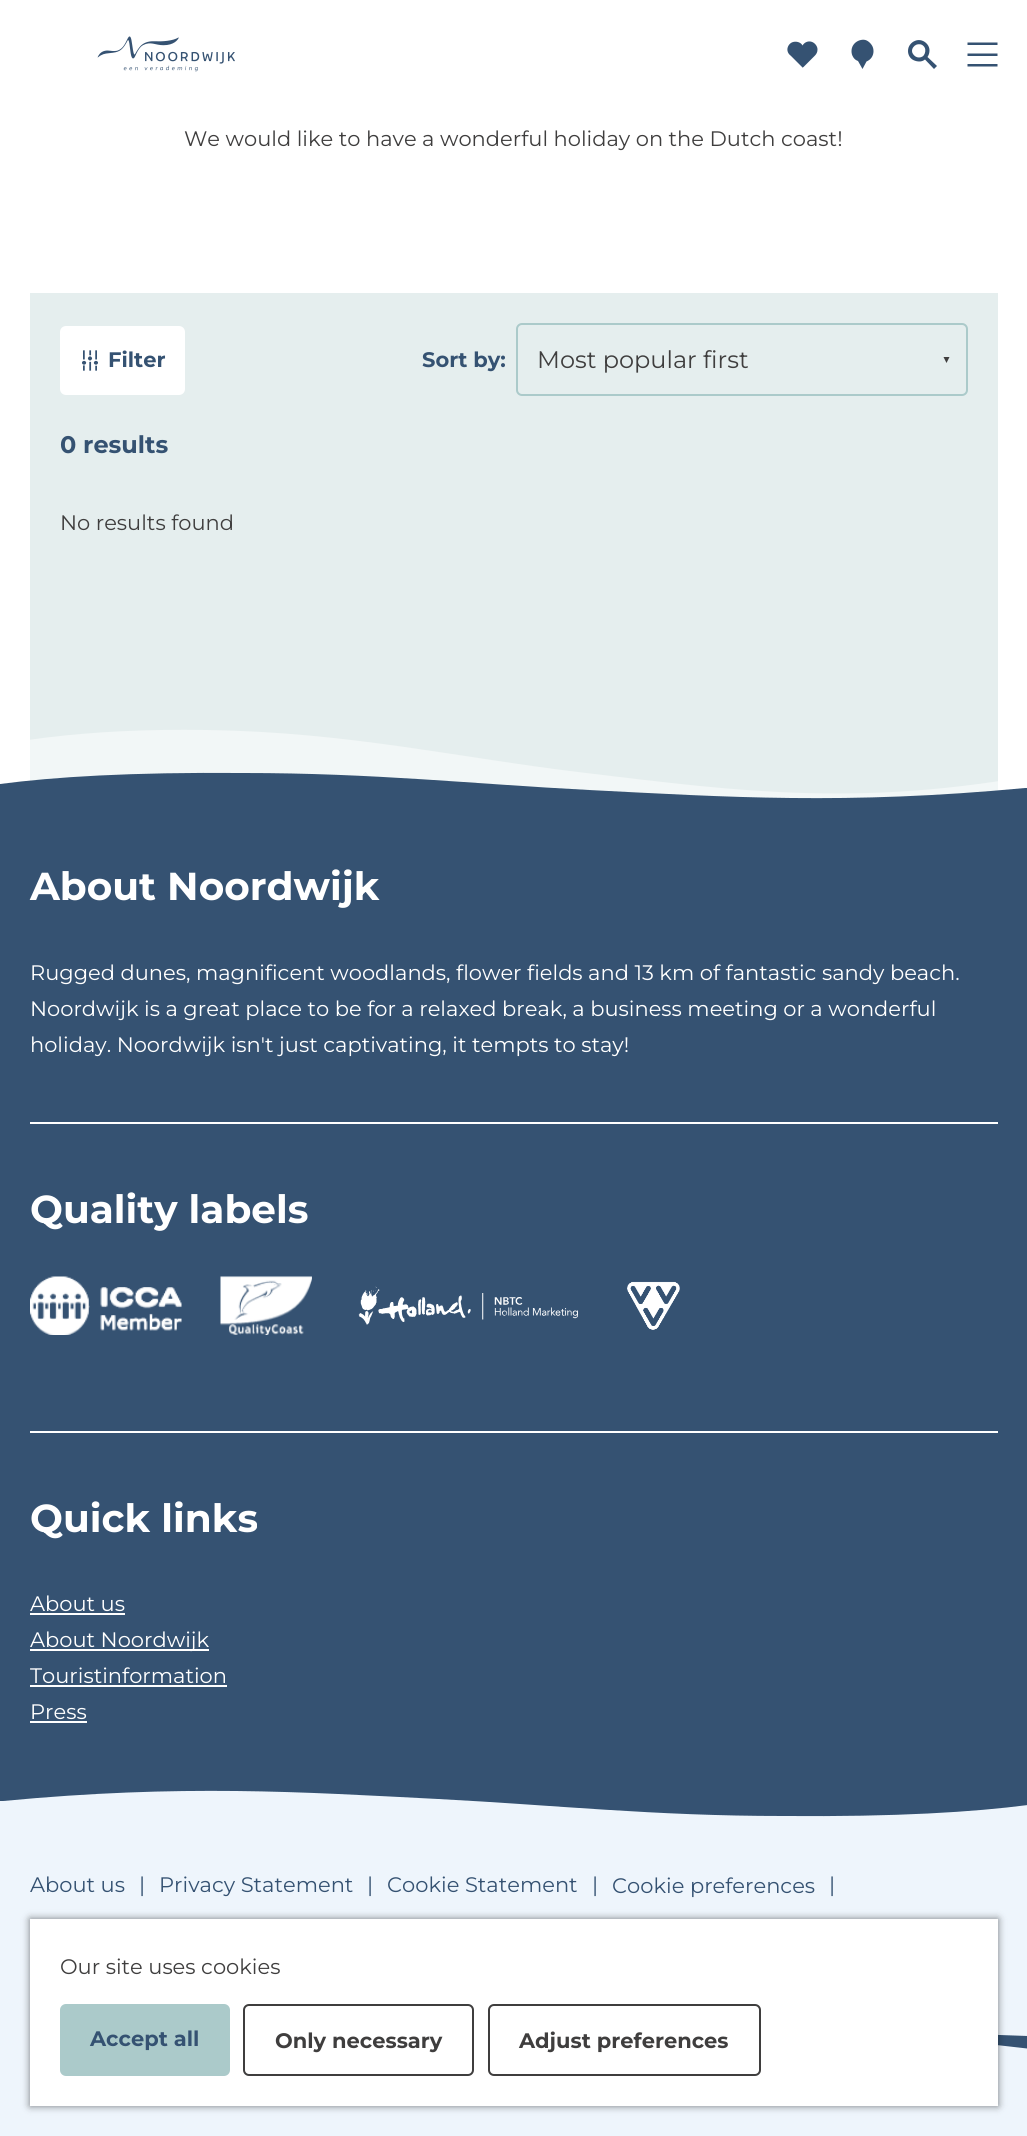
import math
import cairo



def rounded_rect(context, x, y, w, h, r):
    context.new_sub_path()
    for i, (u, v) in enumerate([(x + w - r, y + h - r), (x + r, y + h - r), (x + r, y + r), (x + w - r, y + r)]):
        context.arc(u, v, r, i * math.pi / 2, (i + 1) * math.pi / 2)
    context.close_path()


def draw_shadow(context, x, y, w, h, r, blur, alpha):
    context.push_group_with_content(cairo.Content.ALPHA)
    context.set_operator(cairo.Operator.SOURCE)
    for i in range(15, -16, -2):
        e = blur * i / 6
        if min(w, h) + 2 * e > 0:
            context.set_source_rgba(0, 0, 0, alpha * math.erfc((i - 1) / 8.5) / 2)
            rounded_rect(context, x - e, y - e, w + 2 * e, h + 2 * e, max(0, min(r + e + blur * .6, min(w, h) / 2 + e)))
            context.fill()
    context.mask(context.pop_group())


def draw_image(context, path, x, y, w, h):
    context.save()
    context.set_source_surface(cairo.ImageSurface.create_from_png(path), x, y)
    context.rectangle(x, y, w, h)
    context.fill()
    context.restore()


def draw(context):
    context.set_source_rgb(1, 1, 1)
    context.paint()
    draw_image(context, "images/1.png", 97, 36, 138, 36)
    draw_image(context, "images/2.png", 787, 41, 31, 27)
    draw_image(context, "images/3.png", 851, 39, 23, 30)
    draw_image(context, "images/4.png", 908, 40, 29, 29)
    draw_image(context, "images/5.png", 967, 42, 31, 25)
    context.set_source_rgb(229 / 255, 238 / 255, 238 / 255)
    context.rectangle(30, 293, 968, 506)
    context.fill()
    context.set_source_rgb(1, 1, 1)
    rounded_rect(context, 60, 326, 125, 69, 6)
    context.fill()
    draw_image(context, "images/6.png", 82, 350, 16, 21)
    rounded_rect(context, 517, 324, 450, 71, 5)
    context.set_source_rgb(171 / 255, 202 / 255, 202 / 255)
    context.stroke()
    context.set_source_rgb(63 / 255, 62 / 255, 62 / 255)
    context.new_path()
    context.move_to(943.5, 357)
    context.line_to(949.5, 357)
    context.line_to(946.5, 363)
    context.close_path()
    context.fill()
    context.set_source_rgba(1, 1, 1, 0.5)
    context.new_path()
    context.move_to(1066, 769)
    context.curve_to(868, 810, 738, 791, 586, 773)
    context.curve_to(459, 758, 349, 732, 207, 730)
    context.curve_to(82, 728, -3, 742, -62, 759)
    context.line_to(-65, 804)
    context.line_to(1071, 804)
    context.line_to(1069, 768)
    context.close_path()
    context.fill()
    context.set_source_rgb(53 / 255, 82 / 255, 114 / 255)
    context.rectangle(0, 801, 1027, 987)
    context.fill()
    context.save()
    context.rectangle(0, 771, 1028, 30)
    context.clip()
    context.new_path()
    context.move_to(1025, 788)
    context.curve_to(845, 805, 727, 797, 589, 790)
    context.curve_to(473, 784, 374, 773, 244, 773)
    context.curve_to(130, 772, 53, 777, 0, 784)
    context.line_to(-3, 802)
    context.line_to(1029, 802)
    context.line_to(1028, 788)
    context.close_path()
    context.fill()
    context.restore()
    context.set_source_rgb(1, 1, 1)
    context.rectangle(30, 1122, 968, 2)
    context.fill()
    draw_image(context, "images/7.png", 30, 1276, 152, 59)
    draw_image(context, "images/8.png", 220, 1276, 92, 59)
    draw_image(context, "images/9.png", 358, 1286, 220, 39)
    draw_image(context, "images/10.png", 627, 1281, 53, 49)
    context.rectangle(30, 1431, 968, 2)
    context.fill()
    context.rectangle(30, 1613, 95, 2)
    context.fill()
    context.rectangle(30, 1649, 179, 2)
    context.fill()
    context.rectangle(30, 1685, 197, 2)
    context.fill()
    context.rectangle(30, 1721, 57, 2)
    context.fill()
    context.set_source_rgb(238 / 255, 245 / 255, 252 / 255)
    context.rectangle(0, 1790, 1027, 346)
    context.fill()
    context.save()
    context.rectangle(0, 1788, 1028, 30)
    context.clip()
    context.set_source_rgb(53 / 255, 82 / 255, 114 / 255)
    context.new_path()
    context.move_to(3, 1801)
    context.curve_to(182, 1784, 301, 1792, 438, 1799)
    context.curve_to(554, 1805, 654, 1816, 783, 1816)
    context.curve_to(897, 1817, 974, 1812, 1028, 1805)
    context.line_to(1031, 1787)
    context.line_to(-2, 1787)
    context.line_to(0, 1801)
    context.close_path()
    context.fill()
    context.restore()
    draw_image(context, "images/11.png", 998, 2034, 29, 15)
    context.set_source_rgb(0, 0, 0)
    draw_shadow(context, 30, 1919, 968, 187, 0, 4, 0.5)
    context.set_source_rgb(1, 1, 1)
    context.rectangle(30, 1919, 968, 187)
    context.fill()
    context.set_source_rgb(171 / 255, 202 / 255, 202 / 255)
    rounded_rect(context, 60, 2004, 170, 72, 6)
    context.fill()
    rounded_rect(context, 244, 2005, 229, 70, 5)
    context.set_source_rgb(63 / 255, 62 / 255, 62 / 255)
    context.stroke()
    rounded_rect(context, 489, 2005, 271, 70, 5)
    context.stroke()
    context.select_font_face("Montserrat Thin")
    context.set_font_size(21)
    context.move_to(184, 146)
    context.show_text("We would like to have a wonderful holiday on the Dutch coast!")
    context.select_font_face("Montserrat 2 Thin")
    context.set_source_rgb(53 / 255, 82 / 255, 114 / 255)
    context.move_to(108, 367)
    context.show_text("Filter")
    context.move_to(422, 367)
    context.show_text("Sort by:")
    context.select_font_face("Montserrat Thin")
    context.set_font_size(24)
    context.set_source_rgb(63 / 255, 62 / 255, 62 / 255)
    context.move_to(537, 368)
    context.show_text("Most popular first")
    context.select_font_face("Montserrat 2 Thin")
    context.set_source_rgb(53 / 255, 82 / 255, 114 / 255)
    context.move_to(60, 453)
    context.show_text("0 results")
    context.select_font_face("Montserrat Thin")
    context.set_font_size(21)
    context.set_source_rgb(63 / 255, 62 / 255, 62 / 255)
    context.move_to(60, 530)
    context.show_text("No results found")
    context.select_font_face("Montserrat 2 Thin")
    context.set_font_size(39)
    context.set_source_rgb(1, 1, 1)
    context.move_to(30, 900)
    context.show_text("About Noordwijk")
    context.select_font_face("Montserrat Thin")
    context.set_font_size(21)
    context.move_to(30, 980)
    context.show_text("Rugged dunes, magnificent woodlands, flower fields and 13 km of fantastic sandy beach.")
    context.move_to(30, 1016)
    context.show_text("Noordwijk is a great place to be for a relaxed break, a business meeting or a wonderful")
    context.move_to(30, 1052)
    context.show_text("holiday. Noordwijk isn't just captivating, it tempts to stay!")
    context.select_font_face("Montserrat 2 Thin")
    context.set_font_size(39)
    context.move_to(30, 1223)
    context.show_text("Quality labels")
    context.move_to(30, 1532)
    context.show_text("Quick links")
    context.select_font_face("Montserrat Thin")
    context.set_font_size(21)
    context.move_to(30, 1611)
    context.show_text("About us")
    context.move_to(30, 1647)
    context.show_text("About Noordwijk")
    context.move_to(30, 1683)
    context.show_text("Touristinformation")
    context.move_to(30, 1719)
    context.show_text("Press")
    context.set_source_rgb(53 / 255, 82 / 255, 114 / 255)
    context.move_to(30, 1892)
    context.show_text("About us")
    context.move_to(139, 1892)
    context.show_text("|")
    context.move_to(159, 1892)
    context.show_text("Privacy Statement")
    context.move_to(367, 1892)
    context.show_text("|")
    context.move_to(387, 1892)
    context.show_text("Cookie Statement")
    context.move_to(592, 1892)
    context.show_text("|")
    context.move_to(612, 1893)
    context.show_text("Cookie preferences")
    context.move_to(829, 1892)
    context.show_text("|")
    context.set_source_rgb(63 / 255, 62 / 255, 62 / 255)
    context.move_to(60, 1974)
    context.show_text("Our site uses cookies")
    context.select_font_face("Montserrat 2 Thin")
    context.set_source_rgb(53 / 255, 82 / 255, 114 / 255)
    context.move_to(90, 2046)
    context.show_text("Accept all")
    context.set_source_rgb(63 / 255, 62 / 255, 62 / 255)
    context.move_to(275, 2048)
    context.show_text("Only necessary")
    context.move_to(519, 2048)
    context.show_text("Adjust preferences")


surface = cairo.ImageSurface(cairo.Format.RGB24, 1027, 2136)
context = cairo.Context(surface)
options = cairo.FontOptions()
options.set_hint_metrics(cairo.HintMetrics.OFF)
options.set_hint_style(cairo.HintStyle.NONE)
context.set_font_options(options)
context.set_miter_limit(4)
draw(context)
surface.write_to_png("out.png")
